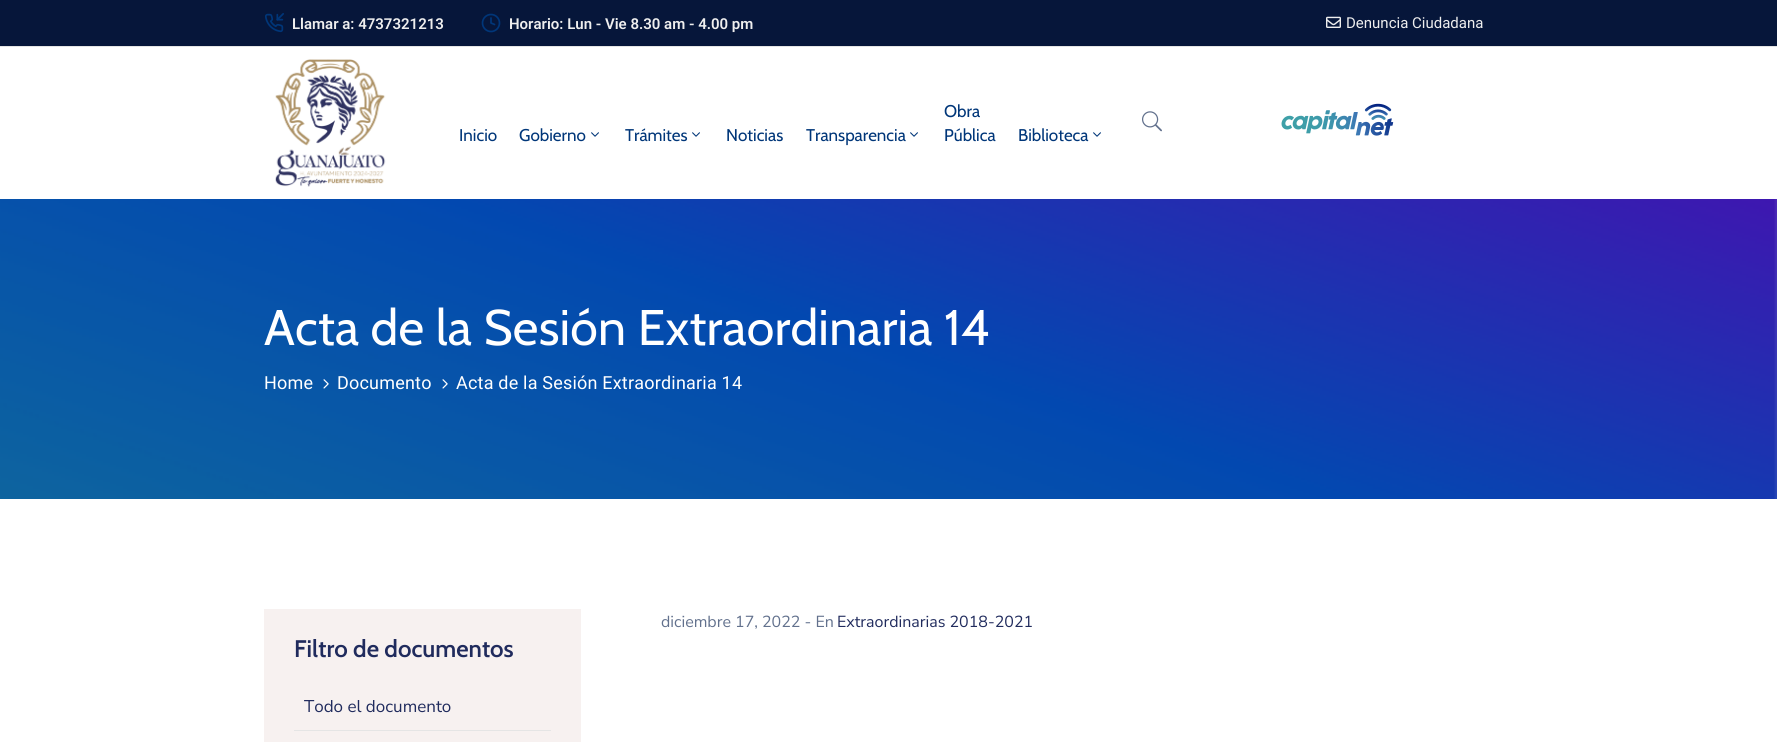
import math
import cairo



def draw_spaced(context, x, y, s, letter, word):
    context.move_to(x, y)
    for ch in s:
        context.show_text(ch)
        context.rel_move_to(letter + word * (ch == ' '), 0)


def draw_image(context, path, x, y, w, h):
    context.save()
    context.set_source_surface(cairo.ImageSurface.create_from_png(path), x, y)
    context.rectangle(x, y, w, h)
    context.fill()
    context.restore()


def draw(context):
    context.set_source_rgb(1, 1, 1)
    context.paint()
    context.set_source_rgb(6 / 255, 22 / 255, 58 / 255)
    context.rectangle(0, 0, 1777, 46)
    context.fill()
    context.set_source_rgb(229 / 255, 229 / 255, 229 / 255)
    context.rectangle(0, 46, 1777, 1)
    context.fill()
    draw_image(context, "images/1.png", 265, 13, 19, 20)
    context.arc(491, 23, 8.5, 0, 2 * math.pi)
    context.set_source_rgb(0, 54 / 255, 121 / 255)
    context.set_line_width(1.7)
    context.stroke()
    context.new_path()
    context.move_to(491, 18)
    context.line_to(491, 23)
    context.line_to(494.5, 24.5)
    context.set_line_cap(cairo.LineCap.ROUND)
    context.set_line_join(cairo.LineJoin.ROUND)
    context.stroke()
    draw_image(context, "images/2.png", 1326, 16, 15, 12)
    draw_image(context, "images/3.png", 275, 59, 111, 128)
    draw_image(context, "images/4.png", 591, 132, 8, 5)
    draw_image(context, "images/4.png", 692, 132, 8, 5)
    draw_image(context, "images/4.png", 910, 132, 8, 5)
    draw_image(context, "images/4.png", 1093, 132, 8, 5)
    draw_image(context, "images/5.png", 1142, 111, 20, 21)
    draw_image(context, "images/6.png", 1281, 103, 113, 33)
    draw_image(context, "images/7.png", 0, 199, 1777, 300)
    draw_image(context, "images/8.png", 323, 379, 6, 10)
    draw_image(context, "images/9.png", 442, 379, 6, 10)
    context.set_source_rgb(247 / 255, 241 / 255, 240 / 255)
    context.rectangle(264, 609, 317, 133)
    context.fill()
    context.set_source_rgb(229 / 255, 229 / 255, 229 / 255)
    context.rectangle(294, 730, 257, 1)
    context.fill()
    context.select_font_face("Roboto SemiBold")
    context.set_font_size(15)
    context.set_source_rgb(238 / 255, 238 / 255, 238 / 255)
    context.move_to(292, 29)
    context.show_text("Llamar a: 4737321213")
    context.move_to(509, 29)
    context.show_text("Horario: Lun - Vie 8.30 am - 4.00 pm")
    context.select_font_face("Roboto")
    context.move_to(1346, 28)
    context.show_text("Denuncia Ciudadana")
    context.select_font_face("Cabin")
    context.set_font_size(17)
    context.set_source_rgb(0, 54 / 255, 121 / 255)
    context.move_to(459, 141)
    context.show_text("Inicio")
    context.move_to(519, 141)
    context.show_text("Gobierno")
    context.move_to(625, 141)
    context.show_text("Trámites")
    context.move_to(726, 141)
    context.show_text("Noticias")
    context.move_to(806, 141)
    context.show_text("Transparencia")
    context.move_to(944, 117)
    context.show_text("Obra")
    context.move_to(944, 141)
    context.show_text("Pública")
    context.move_to(1018, 141)
    context.show_text("Biblioteca")
    context.set_font_size(50)
    context.set_source_rgb(1, 1, 1)
    draw_spaced(context, 264, 345, "Acta de la Sesión Extraordinaria 14", 0.2, 0)
    context.select_font_face("Roboto")
    context.set_font_size(18)
    draw_spaced(context, 264, 389, "Home", 0.2, 0)
    draw_spaced(context, 337, 389, "Documento", 0.2, 0)
    draw_spaced(context, 456, 389, "Acta de la Sesión Extraordinaria 14", 0.2, 0)
    context.select_font_face("Nunito Sans")
    context.set_font_size(16)
    context.set_source_rgb(98 / 255, 113 / 255, 141 / 255)
    context.move_to(661, 627)
    context.show_text("diciembre 17, 2022 - En")
    context.set_source_rgb(32 / 255, 43 / 255, 93 / 255)
    context.move_to(837, 627)
    context.show_text("Extraordinarias 2018-2021")
    context.select_font_face("Cabin SemiBold")
    context.set_font_size(24)
    context.move_to(294, 657)
    context.show_text("Filtro de documentos")
    context.select_font_face("Nunito Sans")
    context.set_font_size(17)
    context.move_to(304, 712)
    context.show_text("Todo el documento")


surface = cairo.ImageSurface(cairo.Format.RGB24, 1777, 742)
context = cairo.Context(surface)
options = cairo.FontOptions()
options.set_hint_metrics(cairo.HintMetrics.OFF)
options.set_hint_style(cairo.HintStyle.NONE)
context.set_font_options(options)
context.set_miter_limit(4)
draw(context)
surface.write_to_png("out.png")
